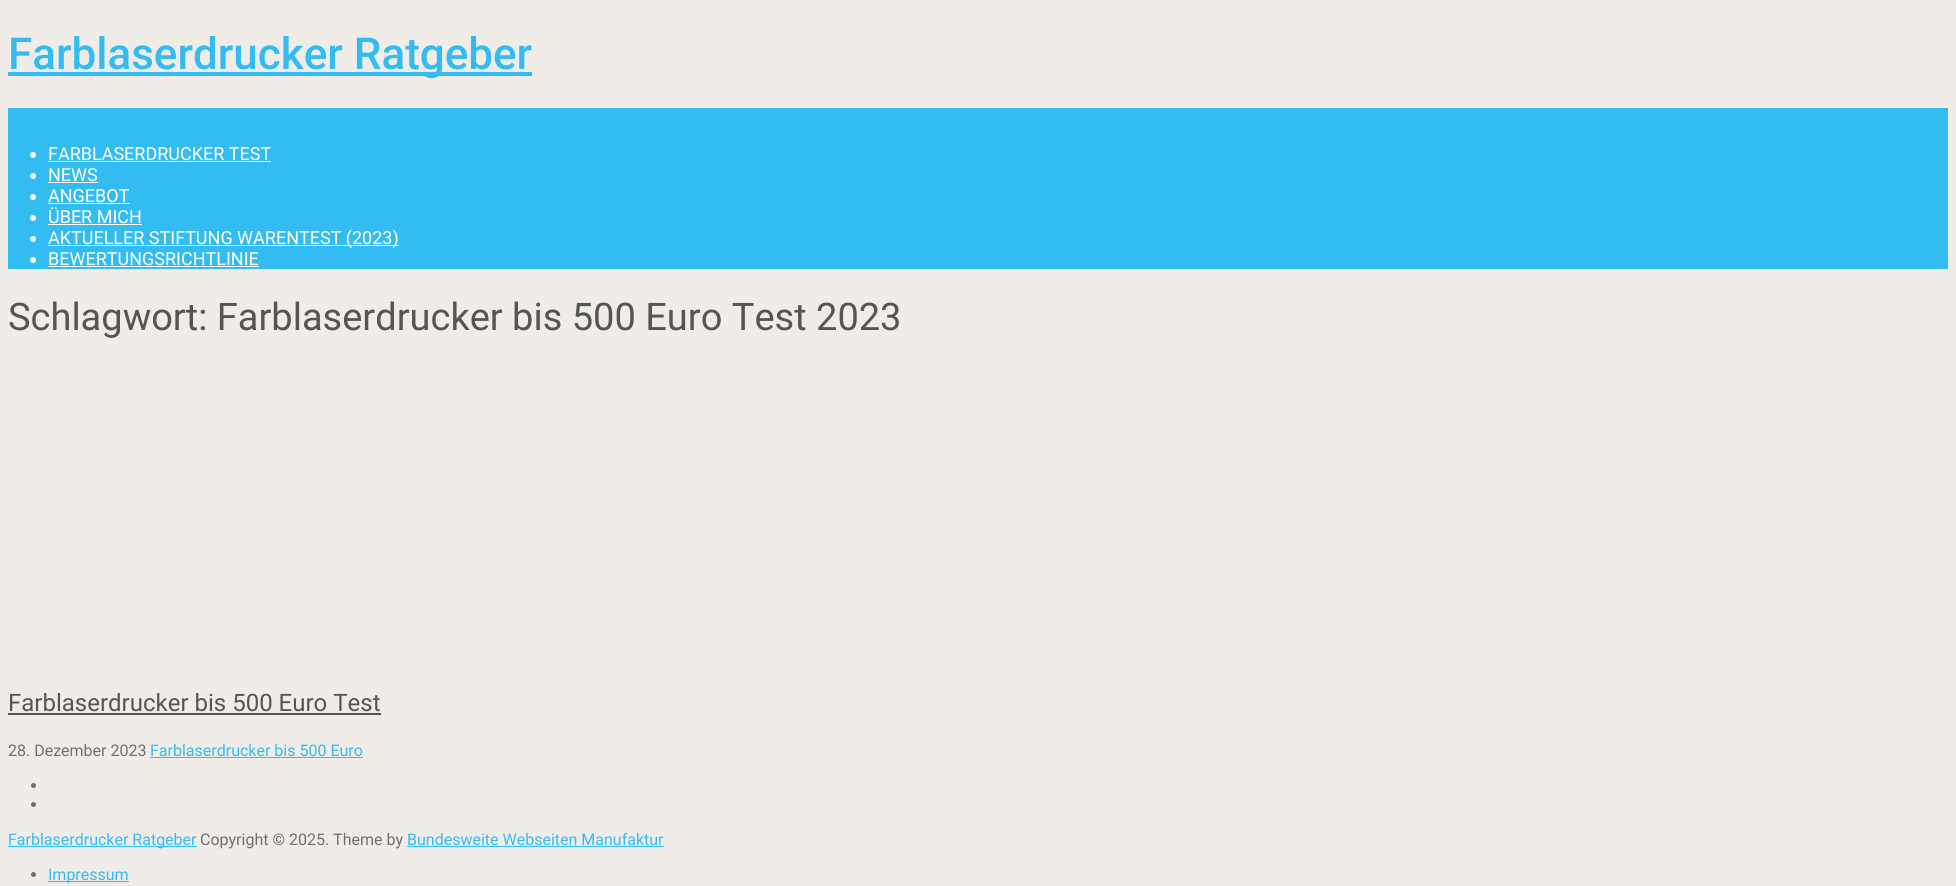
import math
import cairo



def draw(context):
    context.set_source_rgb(240 / 255, 237 / 255, 233 / 255)
    context.paint()
    context.set_source_rgb(51 / 255, 188 / 255, 242 / 255)
    context.rectangle(8, 72, 524, 4)
    context.fill()
    context.rectangle(8, 108, 1940, 161)
    context.fill()
    context.set_source_rgb(1, 1, 1)
    context.arc(33, 155, 3, 0, 2 * math.pi)
    context.fill()
    context.rectangle(48, 161, 223, 1)
    context.fill()
    context.arc(33, 176, 3, 0, 2 * math.pi)
    context.fill()
    context.rectangle(48, 182, 50, 1)
    context.fill()
    context.arc(33, 197, 3, 0, 2 * math.pi)
    context.fill()
    context.rectangle(48, 203, 81, 1)
    context.fill()
    context.arc(33, 218, 3, 0, 2 * math.pi)
    context.fill()
    context.rectangle(48, 224, 94, 1)
    context.fill()
    context.arc(33, 239, 3, 0, 2 * math.pi)
    context.fill()
    context.rectangle(48, 245, 351, 1)
    context.fill()
    context.arc(33, 260, 3, 0, 2 * math.pi)
    context.fill()
    context.rectangle(48, 266, 211, 1)
    context.fill()
    context.set_source_rgb(85 / 255, 85 / 255, 85 / 255)
    context.rectangle(8, 713, 373, 2)
    context.fill()
    context.set_source_rgb(51 / 255, 188 / 255, 242 / 255)
    context.rectangle(150, 757, 213, 1)
    context.fill()
    context.set_source_rgb(112 / 255, 112 / 255, 112 / 255)
    context.arc(33.5, 785.5, 2.5, 0, 2 * math.pi)
    context.fill()
    context.arc(33.5, 804.5, 2.5, 0, 2 * math.pi)
    context.fill()
    context.set_source_rgb(51 / 255, 188 / 255, 242 / 255)
    context.rectangle(8, 846, 189, 1)
    context.fill()
    context.rectangle(407, 846, 257, 1)
    context.fill()
    context.set_source_rgb(112 / 255, 112 / 255, 112 / 255)
    context.arc(33.5, 874.5, 2.5, 0, 2 * math.pi)
    context.fill()
    context.set_source_rgb(51 / 255, 188 / 255, 242 / 255)
    context.rectangle(48, 881, 81, 1)
    context.fill()
    context.select_font_face("Roboto Medium")
    context.set_font_size(44)
    context.move_to(8, 69)
    context.show_text("Farblaserdrucker Ratgeber")
    context.select_font_face("Roboto")
    context.set_font_size(18)
    context.set_source_rgb(1, 1, 1)
    context.move_to(48, 160)
    context.show_text("FARBLASERDRUCKER TEST")
    context.move_to(48, 181)
    context.show_text("NEWS")
    context.move_to(48, 202)
    context.show_text("ANGEBOT")
    context.move_to(48, 223)
    context.show_text("ÜBER MICH")
    context.move_to(48, 244)
    context.show_text("AKTUELLER STIFTUNG WARENTEST (2023)")
    context.move_to(48, 265)
    context.show_text("BEWERTUNGSRICHTLINIE")
    context.set_font_size(38)
    context.set_source_rgb(85 / 255, 85 / 255, 85 / 255)
    context.move_to(8, 330)
    context.show_text("Schlagwort: Farblaserdrucker bis 500 Euro Test 2023")
    context.set_font_size(24)
    context.move_to(8, 711)
    context.show_text("Farblaserdrucker bis 500 Euro Test")
    context.set_font_size(16)
    context.set_source_rgb(112 / 255, 112 / 255, 112 / 255)
    context.move_to(8, 756)
    context.show_text("28. Dezember 2023")
    context.set_source_rgb(51 / 255, 188 / 255, 242 / 255)
    context.move_to(150, 756)
    context.show_text("Farblaserdrucker bis 500 Euro")
    context.move_to(8, 845)
    context.show_text("Farblaserdrucker Ratgeber")
    context.set_source_rgb(112 / 255, 112 / 255, 112 / 255)
    context.move_to(200, 845)
    context.show_text("Copyright © 2025. Theme by")
    context.set_source_rgb(51 / 255, 188 / 255, 242 / 255)
    context.move_to(407, 845)
    context.show_text("Bundesweite Webseiten Manufaktur")
    context.move_to(48, 880)
    context.show_text("Impressum")


surface = cairo.ImageSurface(cairo.Format.RGB24, 1956, 886)
context = cairo.Context(surface)
options = cairo.FontOptions()
options.set_hint_metrics(cairo.HintMetrics.OFF)
options.set_hint_style(cairo.HintStyle.NONE)
context.set_font_options(options)
context.set_miter_limit(4)
draw(context)
surface.write_to_png("out.png")
